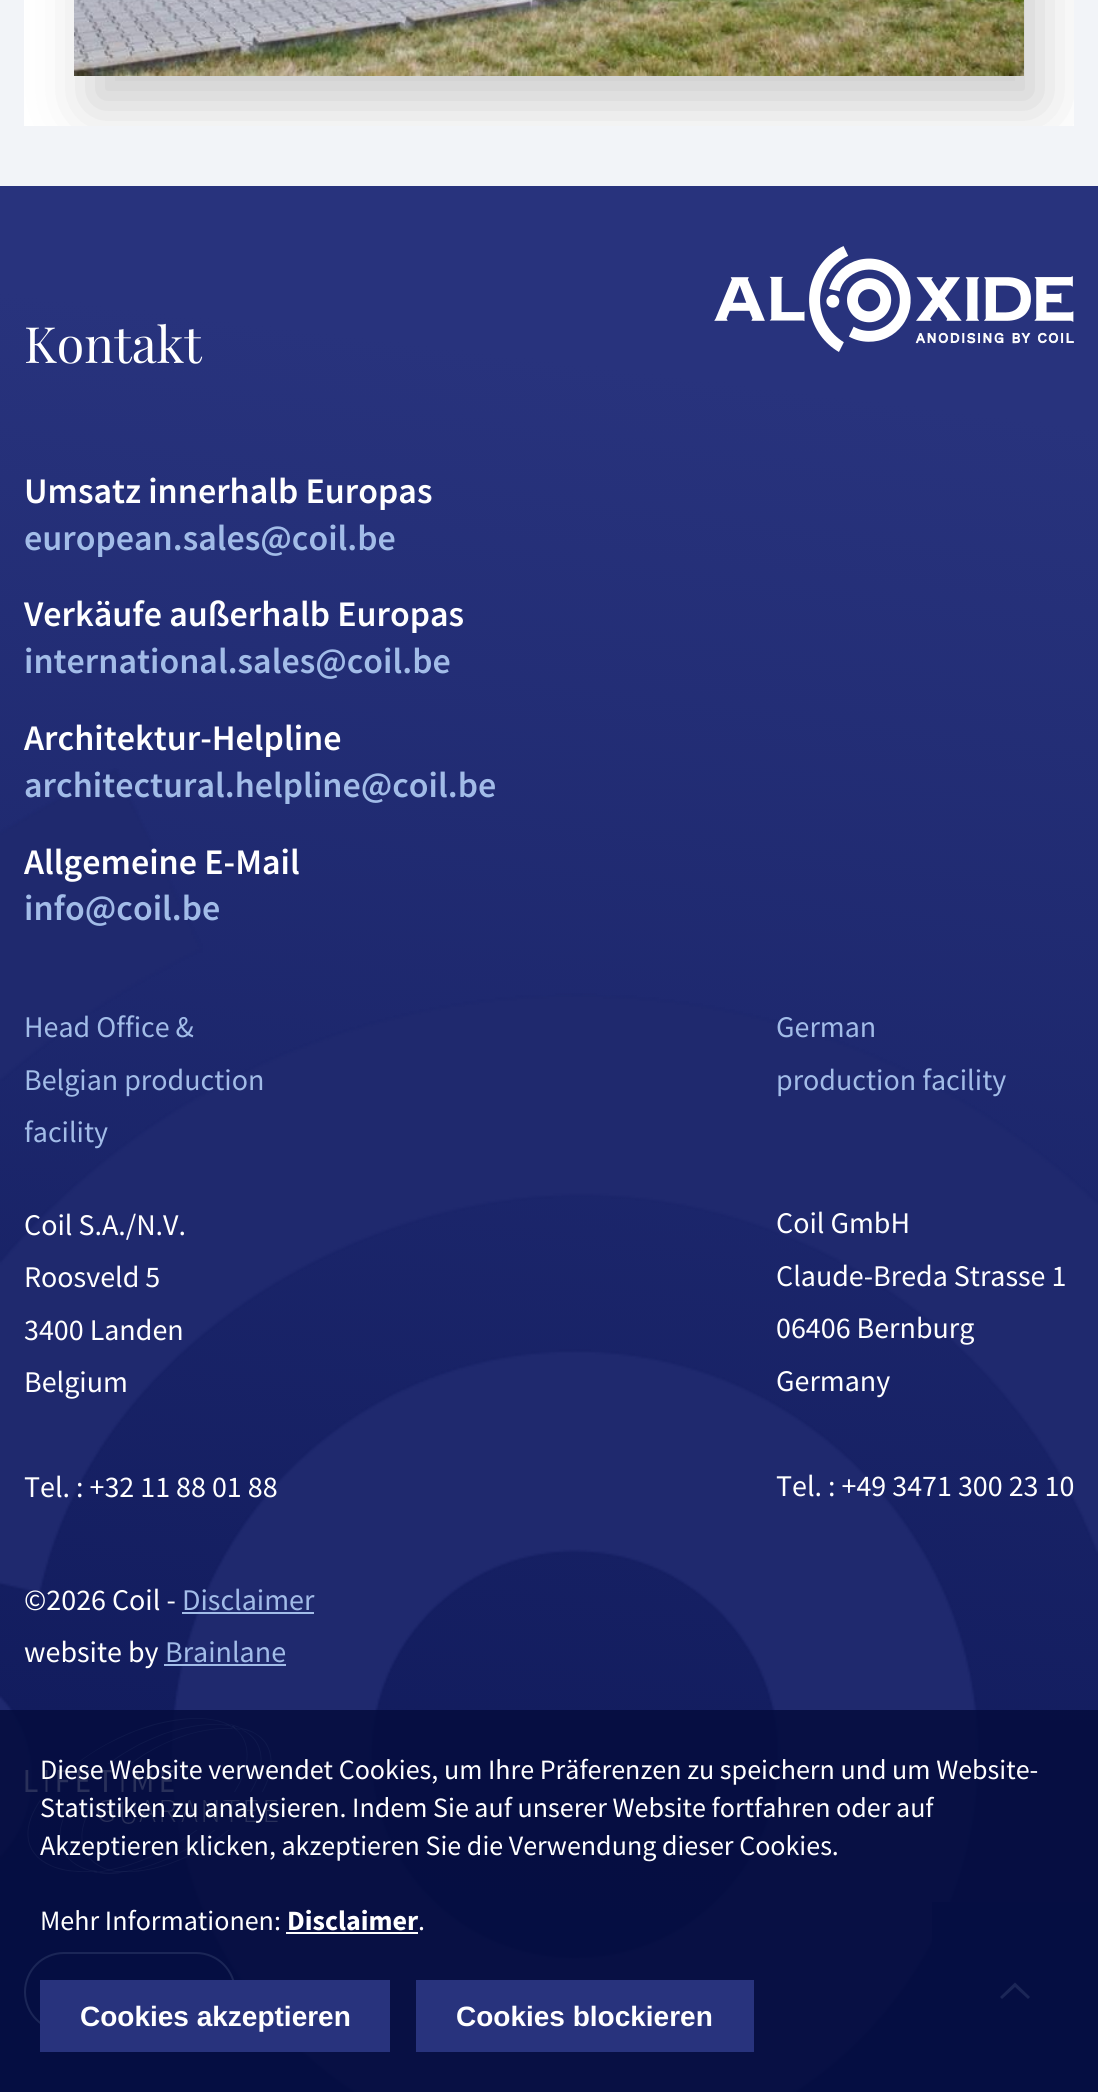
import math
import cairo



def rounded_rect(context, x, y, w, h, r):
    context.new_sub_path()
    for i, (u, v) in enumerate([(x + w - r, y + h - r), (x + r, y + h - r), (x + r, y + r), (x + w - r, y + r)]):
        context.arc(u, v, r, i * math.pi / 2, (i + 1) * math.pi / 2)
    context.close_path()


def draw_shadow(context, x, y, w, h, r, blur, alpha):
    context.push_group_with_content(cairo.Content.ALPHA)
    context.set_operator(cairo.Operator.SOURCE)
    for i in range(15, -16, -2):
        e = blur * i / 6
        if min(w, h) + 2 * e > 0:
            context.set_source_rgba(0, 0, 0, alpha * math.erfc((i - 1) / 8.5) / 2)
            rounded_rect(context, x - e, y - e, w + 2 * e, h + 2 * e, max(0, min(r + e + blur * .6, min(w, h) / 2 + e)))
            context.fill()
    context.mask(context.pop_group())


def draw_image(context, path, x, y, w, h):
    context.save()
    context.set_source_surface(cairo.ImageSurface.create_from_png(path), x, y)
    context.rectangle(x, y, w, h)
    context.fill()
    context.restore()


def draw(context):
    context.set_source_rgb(242 / 255, 244 / 255, 248 / 255)
    context.paint()
    context.set_source_rgb(1, 1, 1)
    context.rectangle(24, 0, 1050, 126)
    context.fill()
    draw_image(context, "images/2.png", 0, 186, 1098, 1906)
    context.save()
    context.rectangle(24, 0, 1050, 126)
    context.clip()
    context.set_source_rgb(0, 0, 0)
    draw_shadow(context, 90, -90, 950, 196, 0, 30, 0.2)
    context.restore()
    draw_image(context, "images/1.png", 74, 0, 950, 76)
    draw_image(context, "images/3.png", 714, 246, 360, 106)
    context.set_source_rgb(162 / 255, 188 / 255, 232 / 255)
    context.rectangle(182, 1612, 132, 2)
    context.fill()
    context.rectangle(164, 1664, 122, 2)
    context.fill()
    draw_image(context, "images/4.png", 25, 1718, 253, 156)
    rounded_rect(context, 25, 1953, 210, 78, 39)
    context.stroke()
    context.set_source_rgb(16 / 255, 26 / 255, 91 / 255)
    context.rectangle(932, 1902, 166, 190)
    context.fill()
    context.set_source_rgb(162 / 255, 188 / 255, 232 / 255)
    context.new_path()
    context.move_to(1015, 1987)
    context.line_to(1002, 1999)
    context.line_to(1000, 1997)
    context.line_to(1015, 1982.5)
    context.line_to(1030, 1997)
    context.line_to(1028, 1999)
    context.close_path()
    context.fill()
    context.set_source_rgba(4 / 255, 12 / 255, 61 / 255, 0.85)
    context.rectangle(0, 1710, 1098, 382)
    context.fill()
    context.set_source_rgb(1, 1, 1)
    context.rectangle(286, 1932, 132, 2)
    context.fill()
    context.set_source_rgb(40 / 255, 51 / 255, 125 / 255)
    context.rectangle(40, 1980, 350, 72)
    context.fill()
    context.rectangle(416, 1980, 338, 72)
    context.fill()
    context.select_font_face("Playfair Display")
    context.set_font_size(50)
    context.set_source_rgb(1, 1, 1)
    context.move_to(24, 363)
    context.show_text("Kontakt")
    context.select_font_face("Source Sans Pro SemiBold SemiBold")
    context.set_font_size(36)
    context.move_to(24, 503)
    context.show_text("Umsatz innerhalb Europas")
    context.set_source_rgb(162 / 255, 188 / 255, 232 / 255)
    context.move_to(24, 550)
    context.show_text("european.sales@coil.be")
    context.set_source_rgb(1, 1, 1)
    context.move_to(24, 626)
    context.show_text("Verkäufe außerhalb Europas")
    context.set_source_rgb(162 / 255, 188 / 255, 232 / 255)
    context.move_to(24, 673)
    context.show_text("international.sales@coil.be")
    context.set_source_rgb(1, 1, 1)
    context.move_to(24, 750)
    context.show_text("Architektur-Helpline")
    context.set_source_rgb(162 / 255, 188 / 255, 232 / 255)
    context.move_to(24, 797)
    context.show_text("architectural.helpline@coil.be")
    context.set_source_rgb(1, 1, 1)
    context.move_to(24, 874)
    context.show_text("Allgemeine E-Mail")
    context.set_source_rgb(162 / 255, 188 / 255, 232 / 255)
    context.move_to(24, 920)
    context.show_text("info@coil.be")
    context.select_font_face("Source Sans Pro")
    context.set_font_size(30)
    context.move_to(24, 1037)
    context.show_text("Head Office &")
    context.move_to(24, 1090)
    context.show_text("Belgian production")
    context.move_to(24, 1142)
    context.show_text("facility")
    context.set_source_rgb(1, 1, 1)
    context.move_to(24, 1235)
    context.show_text("Coil S.A./N.V.")
    context.move_to(24, 1287)
    context.show_text("Roosveld 5")
    context.move_to(24, 1340)
    context.show_text("3400 Landen")
    context.move_to(24, 1392)
    context.show_text("Belgium")
    context.move_to(24, 1497)
    context.show_text("Tel. : +32 11 88 01 88")
    context.set_source_rgb(162 / 255, 188 / 255, 232 / 255)
    context.move_to(776, 1037)
    context.show_text("German")
    context.move_to(776, 1090)
    context.show_text("production facility")
    context.set_source_rgb(1, 1, 1)
    context.move_to(776, 1233)
    context.show_text("Coil GmbH")
    context.move_to(776, 1286)
    context.show_text("Claude-Breda Strasse 1")
    context.move_to(776, 1338)
    context.show_text("06406 Bernburg")
    context.move_to(776, 1391)
    context.show_text("Germany")
    context.move_to(776, 1496)
    context.show_text("Tel. : +49 3471 300 23 10")
    context.move_to(24, 1610)
    context.show_text("©2026 Coil -")
    context.set_source_rgb(162 / 255, 188 / 255, 232 / 255)
    context.move_to(182, 1610)
    context.show_text("Disclaimer")
    context.set_source_rgb(1, 1, 1)
    context.move_to(24, 1662)
    context.show_text("website by")
    context.set_source_rgb(162 / 255, 188 / 255, 232 / 255)
    context.move_to(165, 1662)
    context.show_text("Brainlane")
    context.set_font_size(28)
    context.set_source_rgb(1, 1, 1)
    context.move_to(40, 1779)
    context.show_text("Diese Website verwendet Cookies, um Ihre Präferenzen zu speichern und um Website-")
    context.move_to(40, 1817)
    context.show_text("Statistiken zu analysieren. Indem Sie auf unserer Website fortfahren oder auf")
    context.move_to(40, 1855)
    context.show_text("Akzeptieren klicken, akzeptieren Sie die Verwendung dieser Cookies.")
    context.move_to(40, 1930)
    context.show_text("Mehr Informationen:")
    context.select_font_face("Source Sans Pro", cairo.FontSlant.NORMAL, cairo.FontWeight.BOLD)
    context.move_to(287, 1930)
    context.show_text("Disclaimer")
    context.select_font_face("Source Sans Pro")
    context.move_to(418, 1930)
    context.show_text(".")
    context.select_font_face("Liberation Sans", cairo.FontSlant.NORMAL, cairo.FontWeight.BOLD)
    context.move_to(80, 2026)
    context.show_text("Cookies akzeptieren")
    context.move_to(456, 2026)
    context.show_text("Cookies blockieren")


surface = cairo.ImageSurface(cairo.Format.RGB24, 1098, 2092)
context = cairo.Context(surface)
options = cairo.FontOptions()
options.set_hint_metrics(cairo.HintMetrics.OFF)
options.set_hint_style(cairo.HintStyle.NONE)
context.set_font_options(options)
context.set_miter_limit(4)
draw(context)
surface.write_to_png("out.png")
